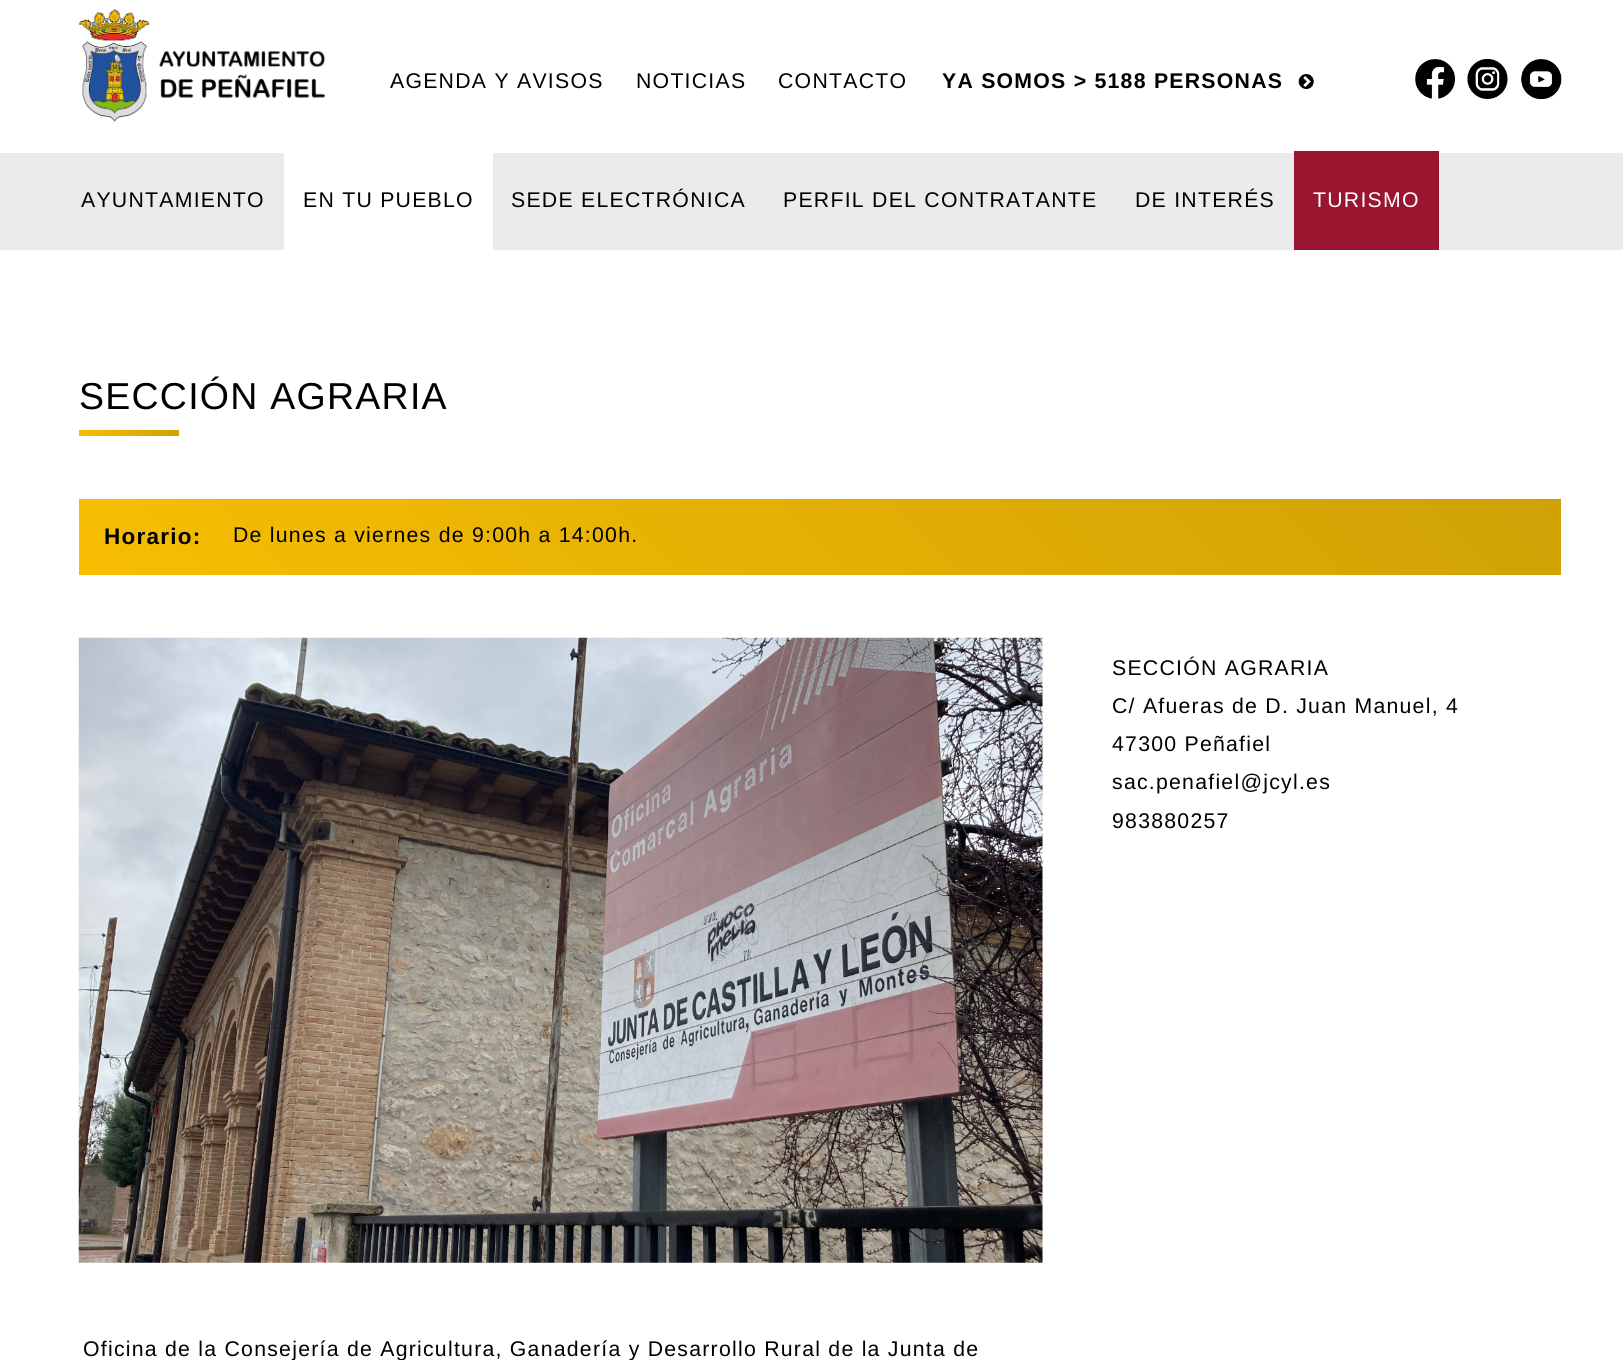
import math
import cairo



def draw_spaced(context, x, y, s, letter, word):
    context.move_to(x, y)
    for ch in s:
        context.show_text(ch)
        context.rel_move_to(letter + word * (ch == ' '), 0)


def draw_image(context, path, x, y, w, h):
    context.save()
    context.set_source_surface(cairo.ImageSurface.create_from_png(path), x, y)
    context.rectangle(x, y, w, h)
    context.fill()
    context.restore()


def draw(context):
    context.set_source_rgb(1, 1, 1)
    context.paint()
    draw_image(context, "images/1.png", 78, 9, 248, 113)
    draw_image(context, "images/2.png", 1298, 74, 16, 15)
    draw_image(context, "images/3.png", 1415, 59, 40, 40)
    draw_image(context, "images/4.png", 1467, 59, 41, 40)
    draw_image(context, "images/5.png", 1521, 59, 41, 40)
    context.set_source_rgb(235 / 255, 235 / 255, 235 / 255)
    context.rectangle(0, 153, 1623, 97)
    context.fill()
    context.set_source_rgb(1, 1, 1)
    context.rectangle(284, 153, 209, 97)
    context.fill()
    context.set_source_rgb(154 / 255, 22 / 255, 48 / 255)
    context.rectangle(1294, 151, 145, 99)
    context.fill()
    gradient = cairo.LinearGradient(102, 460, 155, 407)
    gradient.add_color_stop_rgba(0, 247 / 255, 190 / 255, 2 / 255, 1)
    gradient.add_color_stop_rgba(1, 207 / 255, 161 / 255, 5 / 255, 1)
    context.set_source(gradient)
    context.rectangle(79, 430, 100, 6)
    context.fill()
    gradient = cairo.LinearGradient(430, 927, 1210, 147)
    gradient.add_color_stop_rgba(0, 247 / 255, 190 / 255, 2 / 255, 1)
    gradient.add_color_stop_rgba(1, 207 / 255, 161 / 255, 5 / 255, 1)
    context.set_source(gradient)
    context.rectangle(79, 499, 1482, 76)
    context.fill()
    draw_image(context, "images/6.png", 78, 637, 965, 626)
    context.select_font_face("Liberation Sans")
    context.set_font_size(21.25)
    context.set_source_rgb(0, 0, 0)
    draw_spaced(context, 390, 88, "AGENDA Y AVISOS", 1.25, 0)
    draw_spaced(context, 636, 88, "NOTICIAS", 1.25, 0)
    draw_spaced(context, 778, 88, "CONTACTO", 1.25, 0)
    context.select_font_face("Liberation Sans", cairo.FontSlant.NORMAL, cairo.FontWeight.BOLD)
    draw_spaced(context, 942, 88, "YA SOMOS > 5188 PERSONAS", 1.25, 0)
    context.select_font_face("Liberation Sans")
    draw_spaced(context, 81, 207, "AYUNTAMIENTO", 1.25, 0)
    draw_spaced(context, 303, 207, "EN TU PUEBLO", 1.25, 0)
    draw_spaced(context, 511, 207, "SEDE ELECTRÓNICA", 1.25, 0)
    draw_spaced(context, 783, 207, "PERFIL DEL CONTRATANTE", 1.25, 0)
    draw_spaced(context, 1135, 207, "DE INTERÉS", 1.25, 0)
    context.set_source_rgb(1, 1, 1)
    draw_spaced(context, 1313, 207, "TURISMO", 1.25, 0)
    context.set_font_size(37.5)
    context.set_source_rgb(0, 0, 0)
    draw_spaced(context, 79, 409, "SECCIÓN AGRARIA", 1.25, 0)
    context.select_font_face("Liberation Sans", cairo.FontSlant.NORMAL, cairo.FontWeight.BOLD)
    context.set_font_size(22.5)
    draw_spaced(context, 104, 544, "Horario:", 1.25, 0)
    context.select_font_face("Liberation Sans")
    context.set_font_size(21.25)
    draw_spaced(context, 233, 542, "De lunes a viernes de 9:00h a 14:00h.", 1.25, 0)
    draw_spaced(context, 1112, 675, "SECCIÓN AGRARIA", 1.25, 0)
    draw_spaced(context, 1112, 713, "C/ Afueras de D. Juan Manuel, 4", 1.25, 0)
    draw_spaced(context, 1112, 751, "47300 Peñafiel", 1.25, 0)
    draw_spaced(context, 1112, 789, "sac.penafiel@jcyl.es", 1.25, 0)
    draw_spaced(context, 1112, 828, "983880257", 1.25, 0)
    draw_spaced(context, 83, 1356, "Oficina de la Consejería de Agricultura, Ganadería y Desarrollo Rural de la Junta de", 1.25, 0)


surface = cairo.ImageSurface(cairo.Format.RGB24, 1623, 1360)
context = cairo.Context(surface)
options = cairo.FontOptions()
options.set_hint_metrics(cairo.HintMetrics.OFF)
options.set_hint_style(cairo.HintStyle.NONE)
context.set_font_options(options)
context.set_miter_limit(4)
draw(context)
surface.write_to_png("out.png")
